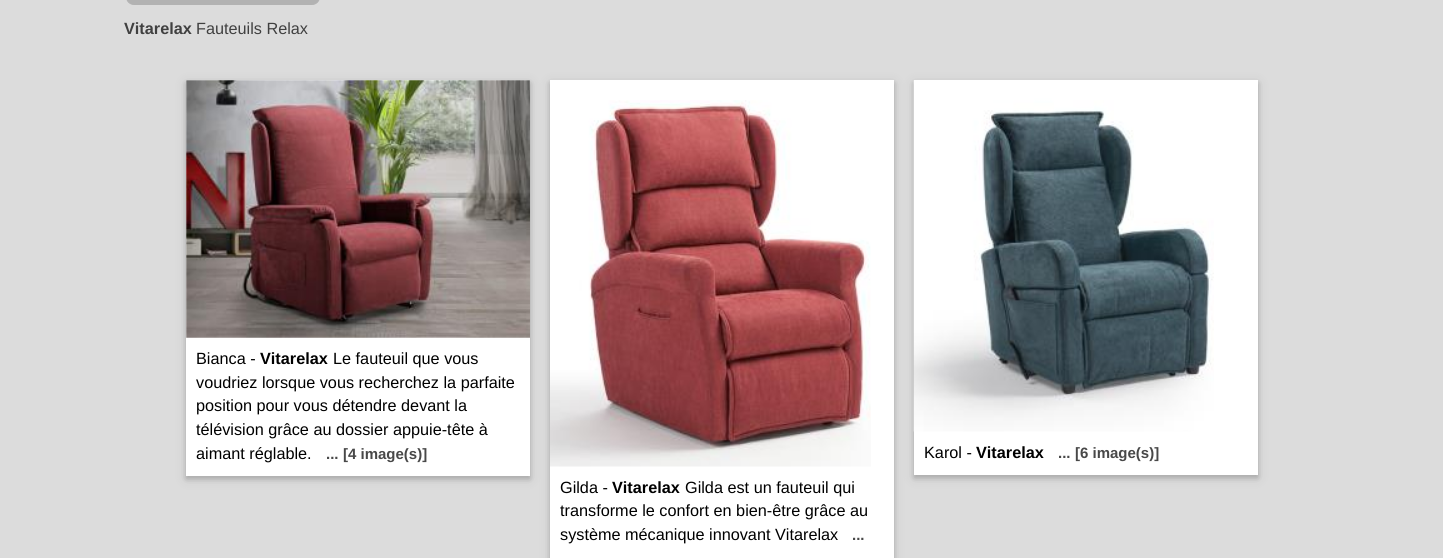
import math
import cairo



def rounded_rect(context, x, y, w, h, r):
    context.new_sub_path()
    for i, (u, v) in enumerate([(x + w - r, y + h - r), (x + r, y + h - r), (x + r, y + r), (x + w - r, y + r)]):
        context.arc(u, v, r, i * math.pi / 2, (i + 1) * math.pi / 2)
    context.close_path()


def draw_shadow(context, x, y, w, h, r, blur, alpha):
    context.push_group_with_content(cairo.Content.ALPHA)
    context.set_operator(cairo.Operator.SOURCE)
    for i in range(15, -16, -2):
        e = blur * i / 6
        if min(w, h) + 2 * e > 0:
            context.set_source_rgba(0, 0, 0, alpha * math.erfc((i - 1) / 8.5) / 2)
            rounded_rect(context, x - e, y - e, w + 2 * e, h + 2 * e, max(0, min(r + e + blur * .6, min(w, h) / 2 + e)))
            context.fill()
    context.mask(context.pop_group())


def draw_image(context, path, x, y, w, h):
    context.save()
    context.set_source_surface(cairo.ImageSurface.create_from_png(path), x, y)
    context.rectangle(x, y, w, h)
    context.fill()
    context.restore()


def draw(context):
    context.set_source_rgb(220 / 255, 220 / 255, 220 / 255)
    context.paint()
    context.set_source_rgb(178 / 255, 178 / 255, 178 / 255)
    rounded_rect(context, 126.5, -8.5, 193, 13, 7.5)
    context.fill_preserve()
    context.set_line_width(1)
    context.stroke()
    context.set_source_rgb(0, 0, 0)
    draw_shadow(context, 186, 83, 344, 396, 0, 6, 0.12)
    draw_shadow(context, 186, 83, 344, 396, 0, 2.5, 0.16)
    context.set_source_rgb(1, 1, 1)
    context.rectangle(186, 80, 344, 396)
    context.fill()
    draw_image(context, "images/1.png", 186, 80, 344, 258)
    context.set_source_rgb(0, 0, 0)
    draw_shadow(context, 914, 83, 344, 395, 0, 6, 0.12)
    draw_shadow(context, 914, 83, 344, 395, 0, 2.5, 0.16)
    context.set_source_rgb(1, 1, 1)
    context.rectangle(914, 80, 344, 395)
    context.fill()
    draw_image(context, "images/2.png", 913, 80, 301, 352)
    context.set_source_rgb(0, 0, 0)
    draw_shadow(context, 550, 83, 344, 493, 0, 6, 0.12)
    draw_shadow(context, 550, 83, 344, 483, 0, 2.5, 0.16)
    context.set_source_rgb(1, 1, 1)
    context.rectangle(550, 80, 344, 478)
    context.fill()
    draw_image(context, "images/3.png", 550, 100, 321, 367)
    context.select_font_face("Liberation Sans", cairo.FontSlant.NORMAL, cairo.FontWeight.BOLD)
    context.set_font_size(16.25)
    context.set_source_rgb(64 / 255, 64 / 255, 64 / 255)
    context.move_to(124, 34)
    context.show_text("Vitarelax")
    context.select_font_face("Liberation Sans")
    context.move_to(196, 34)
    context.show_text("Fauteuils Relax")
    context.set_source_rgb(0, 0, 0)
    context.move_to(196, 364)
    context.show_text("Bianca -")
    context.select_font_face("Liberation Sans", cairo.FontSlant.NORMAL, cairo.FontWeight.BOLD)
    context.move_to(260, 364)
    context.show_text("Vitarelax")
    context.select_font_face("Liberation Sans")
    context.move_to(333, 364)
    context.show_text("Le fauteuil que vous")
    context.move_to(196, 388)
    context.show_text("voudriez lorsque vous recherchez la parfaite")
    context.move_to(196, 411)
    context.show_text("position pour vous détendre devant la")
    context.move_to(196, 435)
    context.show_text("télévision grâce au dossier appuie-tête à")
    context.move_to(196, 459)
    context.show_text("aimant réglable.")
    context.select_font_face("Liberation Sans", cairo.FontSlant.NORMAL, cairo.FontWeight.BOLD)
    context.set_font_size(15)
    context.set_source_rgb(72 / 255, 72 / 255, 72 / 255)
    context.move_to(326, 459)
    context.show_text("...")
    context.move_to(343, 459)
    context.show_text("[4 image(s)]")
    context.select_font_face("Liberation Sans")
    context.set_font_size(16.25)
    context.set_source_rgb(0, 0, 0)
    context.move_to(924, 458)
    context.show_text("Karol -")
    context.select_font_face("Liberation Sans", cairo.FontSlant.NORMAL, cairo.FontWeight.BOLD)
    context.move_to(976, 458)
    context.show_text("Vitarelax")
    context.set_font_size(15)
    context.set_source_rgb(72 / 255, 72 / 255, 72 / 255)
    context.move_to(1058, 458)
    context.show_text("...")
    context.move_to(1075, 458)
    context.show_text("[6 image(s)]")
    context.select_font_face("Liberation Sans")
    context.set_font_size(16.25)
    context.set_source_rgb(0, 0, 0)
    context.move_to(560, 493)
    context.show_text("Gilda -")
    context.select_font_face("Liberation Sans", cairo.FontSlant.NORMAL, cairo.FontWeight.BOLD)
    context.move_to(612, 493)
    context.show_text("Vitarelax")
    context.select_font_face("Liberation Sans")
    context.move_to(685, 493)
    context.show_text("Gilda est un fauteuil qui")
    context.move_to(560, 516)
    context.show_text("transforme le confort en bien-être grâce au")
    context.move_to(560, 540)
    context.show_text("système mécanique innovant Vitarelax")
    context.select_font_face("Liberation Sans", cairo.FontSlant.NORMAL, cairo.FontWeight.BOLD)
    context.set_font_size(15)
    context.set_source_rgb(72 / 255, 72 / 255, 72 / 255)
    context.move_to(852, 540)
    context.show_text("...")


surface = cairo.ImageSurface(cairo.Format.RGB24, 1443, 558)
context = cairo.Context(surface)
options = cairo.FontOptions()
options.set_hint_metrics(cairo.HintMetrics.OFF)
options.set_hint_style(cairo.HintStyle.NONE)
context.set_font_options(options)
context.set_miter_limit(4)
draw(context)
surface.write_to_png("out.png")
